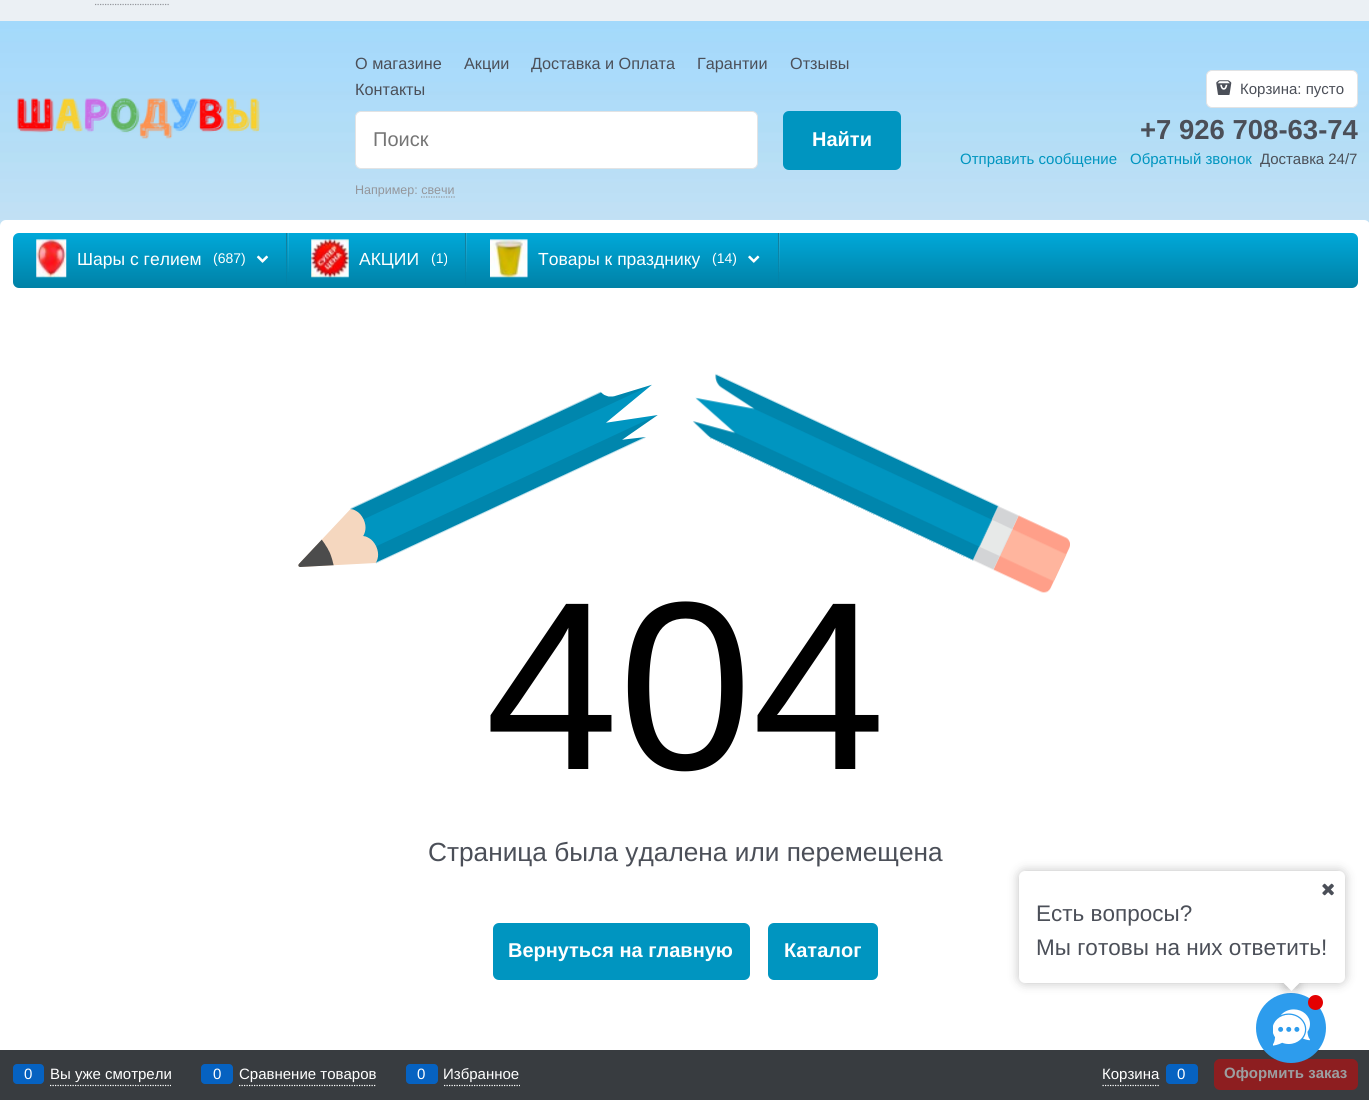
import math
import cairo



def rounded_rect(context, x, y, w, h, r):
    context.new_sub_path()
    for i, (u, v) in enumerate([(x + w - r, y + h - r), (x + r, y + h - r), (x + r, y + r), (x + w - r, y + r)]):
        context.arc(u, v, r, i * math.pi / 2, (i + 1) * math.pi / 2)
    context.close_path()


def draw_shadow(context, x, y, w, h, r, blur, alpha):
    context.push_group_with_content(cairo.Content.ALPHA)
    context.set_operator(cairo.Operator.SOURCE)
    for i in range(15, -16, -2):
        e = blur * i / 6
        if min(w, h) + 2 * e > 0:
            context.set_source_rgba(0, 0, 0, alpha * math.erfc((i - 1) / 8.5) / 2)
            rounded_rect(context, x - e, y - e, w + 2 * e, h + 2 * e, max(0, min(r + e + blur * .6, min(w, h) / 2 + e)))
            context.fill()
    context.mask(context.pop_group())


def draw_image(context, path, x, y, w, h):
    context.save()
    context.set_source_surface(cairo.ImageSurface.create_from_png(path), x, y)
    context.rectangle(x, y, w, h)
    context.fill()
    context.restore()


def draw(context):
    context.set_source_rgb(1, 1, 1)
    context.paint()
    draw_image(context, "images/1.png", 0, 21, 1369, 205)
    context.set_source_rgb(235 / 255, 240 / 255, 244 / 255)
    context.rectangle(0, 0, 1369, 21)
    context.fill()
    context.new_path()
    context.move_to(95, 4.5)
    context.line_to(170, 4.5)
    context.set_source_rgb(148 / 255, 150 / 255, 155 / 255)
    context.set_line_width(1.2)
    context.set_dash([1.25, 1.25])
    context.stroke()
    draw_image(context, "images/2.png", 17, 98, 243, 41)
    context.set_source_rgb(1, 1, 1)
    rounded_rect(context, 355.5, 111.5, 402, 57, 5.5)
    context.fill_preserve()
    context.set_source_rgb(226 / 255, 227 / 255, 228 / 255)
    context.set_line_width(1)
    context.set_dash([])
    context.stroke()
    context.new_path()
    context.move_to(421, 197)
    context.line_to(455, 197)
    context.set_source_rgb(148 / 255, 150 / 255, 155 / 255)
    context.set_line_width(1.2)
    context.set_dash([1.25, 1.25])
    context.stroke()
    context.set_source_rgb(0, 149 / 255, 192 / 255)
    rounded_rect(context, 783, 111, 118, 59, 6)
    context.fill()
    context.set_source_rgb(1, 1, 1)
    rounded_rect(context, 1206.5, 70.5, 151, 37, 5.5)
    context.fill_preserve()
    context.set_source_rgb(226 / 255, 227 / 255, 228 / 255)
    context.set_line_width(1)
    context.set_dash([])
    context.stroke()
    draw_image(context, "images/3.png", 1216, 80, 16, 15)
    context.set_source_rgb(1, 1, 1)
    rounded_rect(context, 0, 220, 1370, 804, 6)
    context.fill()
    gradient = cairo.LinearGradient(685, 232, 685, 288)
    gradient.add_color_stop_rgba(0, 0, 169 / 255, 218 / 255, 1)
    gradient.add_color_stop_rgba(0.5, 0, 149 / 255, 192 / 255, 1)
    gradient.add_color_stop_rgba(1, 0, 129 / 255, 166 / 255, 1)
    context.set_source(gradient)
    rounded_rect(context, 13, 233, 1345, 55, 6)
    context.fill()
    draw_image(context, "images/4.png", 36, 239, 31, 39)
    draw_image(context, "images/5.png", 256, 255, 13, 8)
    gradient = cairo.LinearGradient(288, 233, 288, 288)
    gradient.add_color_stop_rgba(0, 1, 1, 1, 0.14)
    gradient.add_color_stop_rgba(0.72, 1, 1, 1, 0.02)
    gradient.add_color_stop_rgba(1, 1, 1, 1, 0)
    context.set_source(gradient)
    context.rectangle(288, 233, 1, 39)
    context.fill()
    gradient = cairo.LinearGradient(287, 233, 287, 288)
    gradient.add_color_stop_rgba(0, 57 / 255, 57 / 255, 57 / 255, 0.39)
    gradient.add_color_stop_rgba(0.17, 57 / 255, 57 / 255, 57 / 255, 0.33)
    gradient.add_color_stop_rgba(0.61, 57 / 255, 57 / 255, 57 / 255, 0.12)
    gradient.add_color_stop_rgba(0.96, 57 / 255, 57 / 255, 57 / 255, 0.01)
    gradient.add_color_stop_rgba(0.98, 1, 1, 1, 0.01)
    gradient.add_color_stop_rgba(1, 1, 1, 1, 0)
    context.set_source(gradient)
    context.rectangle(286, 233, 1, 55)
    context.fill()
    draw_image(context, "images/6.png", 311, 239, 38, 39)
    gradient = cairo.LinearGradient(467, 233, 467, 288)
    gradient.add_color_stop_rgba(0, 1, 1, 1, 0.14)
    gradient.add_color_stop_rgba(0.72, 1, 1, 1, 0.02)
    gradient.add_color_stop_rgba(1, 1, 1, 1, 0)
    context.set_source(gradient)
    context.rectangle(466, 233, 1, 39)
    context.fill()
    gradient = cairo.LinearGradient(466, 233, 466, 288)
    gradient.add_color_stop_rgba(0, 57 / 255, 57 / 255, 57 / 255, 0.39)
    gradient.add_color_stop_rgba(0.17, 57 / 255, 57 / 255, 57 / 255, 0.33)
    gradient.add_color_stop_rgba(0.61, 57 / 255, 57 / 255, 57 / 255, 0.12)
    gradient.add_color_stop_rgba(0.96, 57 / 255, 57 / 255, 57 / 255, 0.01)
    gradient.add_color_stop_rgba(0.98, 1, 1, 1, 0.01)
    gradient.add_color_stop_rgba(1, 1, 1, 1, 0)
    context.set_source(gradient)
    context.rectangle(465, 233, 1, 55)
    context.fill()
    draw_image(context, "images/7.png", 490, 239, 38, 39)
    draw_image(context, "images/8.png", 748, 255, 12, 8)
    gradient = cairo.LinearGradient(779, 233, 779, 288)
    gradient.add_color_stop_rgba(0, 1, 1, 1, 0.14)
    gradient.add_color_stop_rgba(0.72, 1, 1, 1, 0.02)
    gradient.add_color_stop_rgba(1, 1, 1, 1, 0)
    context.set_source(gradient)
    context.rectangle(779, 233, 1, 39)
    context.fill()
    gradient = cairo.LinearGradient(778, 233, 778, 288)
    gradient.add_color_stop_rgba(0, 57 / 255, 57 / 255, 57 / 255, 0.39)
    gradient.add_color_stop_rgba(0.17, 57 / 255, 57 / 255, 57 / 255, 0.33)
    gradient.add_color_stop_rgba(0.61, 57 / 255, 57 / 255, 57 / 255, 0.12)
    gradient.add_color_stop_rgba(0.96, 57 / 255, 57 / 255, 57 / 255, 0.01)
    gradient.add_color_stop_rgba(0.98, 1, 1, 1, 0.01)
    gradient.add_color_stop_rgba(1, 1, 1, 1, 0)
    context.set_source(gradient)
    context.rectangle(778, 233, 1, 55)
    context.fill()
    draw_image(context, "images/9.png", 298, 373, 772, 220)
    context.set_source_rgb(0, 149 / 255, 192 / 255)
    rounded_rect(context, 493, 923, 257, 57, 6)
    context.fill()
    rounded_rect(context, 768, 923, 110, 57, 6)
    context.fill()
    context.set_source_rgb(56 / 255, 60 / 255, 64 / 255)
    context.rectangle(0, 1050, 1369, 50)
    context.fill()
    context.new_path()
    context.move_to(50, 1085.5)
    context.line_to(171, 1085.5)
    context.set_source_rgb(1, 1, 1)
    context.set_line_width(1.2)
    context.set_dash([1.25, 1.25])
    context.stroke()
    context.set_source_rgb(6 / 255, 98 / 255, 193 / 255)
    rounded_rect(context, 13, 1064, 31, 20, 4)
    context.fill()
    context.new_path()
    context.move_to(239, 1085.5)
    context.line_to(376, 1085.5)
    context.set_source_rgb(1, 1, 1)
    context.stroke()
    context.set_source_rgb(6 / 255, 98 / 255, 193 / 255)
    rounded_rect(context, 201, 1064, 32, 20, 4)
    context.fill()
    context.new_path()
    context.move_to(444, 1085.5)
    context.line_to(520, 1085.5)
    context.set_source_rgb(1, 1, 1)
    context.stroke()
    context.set_source_rgb(6 / 255, 98 / 255, 193 / 255)
    rounded_rect(context, 406, 1064, 32, 20, 4)
    context.fill()
    context.new_path()
    context.move_to(1102.5, 1085.5)
    context.line_to(1160, 1085.5)
    context.set_source_rgb(1, 1, 1)
    context.stroke()
    context.set_source_rgb(6 / 255, 98 / 255, 193 / 255)
    rounded_rect(context, 1166, 1064, 32, 20, 4)
    context.fill()
    context.set_source_rgb(141 / 255, 30 / 255, 32 / 255)
    rounded_rect(context, 1214, 1059, 144, 31, 6)
    context.fill()
    context.set_source_rgb(45 / 255, 156 / 255, 237 / 255)
    context.arc(1291, 1028, 35, 0, 2 * math.pi)
    context.fill()
    draw_image(context, "images/11.png", 1273, 1009, 37, 37)
    context.set_source_rgb(228 / 255, 0, 1 / 255)
    context.arc(1315.5, 1002.5, 7.5, 0, 2 * math.pi)
    context.fill()
    context.set_source_rgb(0, 0, 0)
    draw_shadow(context, 1019, 871, 326, 112, 6, 5.5, 0.25)
    context.set_source_rgb(1, 1, 1)
    rounded_rect(context, 1019, 871, 326, 112, 6)
    context.fill()
    draw_image(context, "images/10.png", 1322, 883, 12, 13)
    context.save()
    context.rectangle(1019, 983, 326, 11)
    context.clip()
    context.set_source_rgb(0, 0, 0)
    draw_shadow(context, 1285, 976, 13, 13, 0, 5.5, 0.25)
    context.restore()
    context.save()
    context.rectangle(1019, 983, 326, 11)
    context.clip()
    context.new_path()
    context.move_to(1291.5, 973.5)
    context.line_to(1300.5, 982)
    context.line_to(1291.5, 991)
    context.line_to(1282.5, 982)
    context.close_path()
    context.fill()
    context.restore()
    context.select_font_face("Liberation Sans")
    context.set_font_size(16.25)
    context.set_source_rgb(75 / 255, 79 / 255, 88 / 255)
    context.move_to(355, 69)
    context.show_text("О магазине")
    context.move_to(464, 69)
    context.show_text("Акции")
    context.move_to(531, 69)
    context.show_text("Доставка и Оплата")
    context.move_to(697, 69)
    context.show_text("Гарантии")
    context.move_to(790, 69)
    context.show_text("Отзывы")
    context.move_to(355, 95)
    context.show_text("Контакты")
    context.set_font_size(20)
    context.set_source_rgb(117 / 255, 117 / 255, 117 / 255)
    context.move_to(373, 146)
    context.show_text("Поиск")
    context.set_font_size(12.5)
    context.set_source_rgb(148 / 255, 150 / 255, 155 / 255)
    context.move_to(355, 194)
    context.show_text("Например: свечи")
    context.select_font_face("Liberation Sans", cairo.FontSlant.NORMAL, cairo.FontWeight.BOLD)
    context.set_font_size(20)
    context.set_source_rgb(1, 1, 1)
    context.move_to(812, 146)
    context.show_text("Найти")
    context.select_font_face("Liberation Sans")
    context.set_font_size(15)
    context.set_source_rgb(75 / 255, 79 / 255, 88 / 255)
    context.move_to(1240, 94)
    context.show_text("Корзина: пусто")
    context.select_font_face("Liberation Sans", cairo.FontSlant.NORMAL, cairo.FontWeight.BOLD)
    context.set_font_size(27.5)
    context.move_to(1140, 139)
    context.show_text("+7 926 708-63-74")
    context.select_font_face("Liberation Sans")
    context.set_font_size(15)
    context.set_source_rgb(0, 149 / 255, 192 / 255)
    context.move_to(960, 164)
    context.show_text("Отправить сообщение")
    context.move_to(1130, 164)
    context.show_text("Обратный звонок")
    context.set_source_rgb(75 / 255, 79 / 255, 88 / 255)
    context.move_to(1260, 164)
    context.show_text("Доставка 24/7")
    context.set_font_size(17.5)
    context.set_source_rgb(1, 1, 1)
    context.move_to(77, 265)
    context.show_text("Шары с гелием")
    context.set_font_size(14)
    context.move_to(213, 263)
    context.show_text("(687)")
    context.set_font_size(17.5)
    context.move_to(359, 265)
    context.show_text("АКЦИИ")
    context.set_font_size(14)
    context.move_to(431, 263)
    context.show_text("(1)")
    context.set_font_size(17.5)
    context.move_to(538, 265)
    context.show_text("Товары к празднику")
    context.set_font_size(14)
    context.move_to(712, 263)
    context.show_text("(14)")
    context.set_font_size(240)
    context.set_source_rgb(0, 0, 0)
    context.move_to(485, 769)
    context.show_text("404")
    context.set_font_size(26.25)
    context.set_source_rgb(75 / 255, 79 / 255, 88 / 255)
    context.move_to(428, 861)
    context.show_text("Страница была удалена или перемещена")
    context.select_font_face("Liberation Sans", cairo.FontSlant.NORMAL, cairo.FontWeight.BOLD)
    context.set_font_size(20)
    context.set_source_rgb(1, 1, 1)
    context.move_to(508, 957)
    context.show_text("Вернуться на главную")
    context.move_to(784, 957)
    context.show_text("Каталог")
    context.select_font_face("Liberation Sans")
    context.set_font_size(15)
    context.move_to(24, 1079)
    context.show_text("0")
    context.move_to(50, 1079)
    context.show_text("Вы уже смотрели")
    context.move_to(213, 1079)
    context.show_text("0")
    context.move_to(239, 1079)
    context.show_text("Сравнение товаров")
    context.move_to(417, 1079)
    context.show_text("0")
    context.move_to(443, 1079)
    context.show_text("Избранное")
    context.move_to(1102, 1079)
    context.show_text("Корзина")
    context.move_to(1177, 1079)
    context.show_text("0")
    context.select_font_face("Liberation Sans", cairo.FontSlant.NORMAL, cairo.FontWeight.BOLD)
    context.set_source_rgb(156 / 255, 158 / 255, 160 / 255)
    context.move_to(1224, 1078)
    context.show_text("Оформить заказ")
    context.select_font_face("Liberation Sans")
    context.set_font_size(22.5)
    context.set_source_rgb(75 / 255, 79 / 255, 88 / 255)
    context.move_to(1036, 921)
    context.show_text("Есть вопросы?")
    context.move_to(1036, 955)
    context.show_text("Мы готовы на них ответить!")


surface = cairo.ImageSurface(cairo.Format.RGB24, 1369, 1100)
context = cairo.Context(surface)
options = cairo.FontOptions()
options.set_hint_metrics(cairo.HintMetrics.OFF)
options.set_hint_style(cairo.HintStyle.NONE)
context.set_font_options(options)
context.set_miter_limit(4)
draw(context)
surface.write_to_png("out.png")
